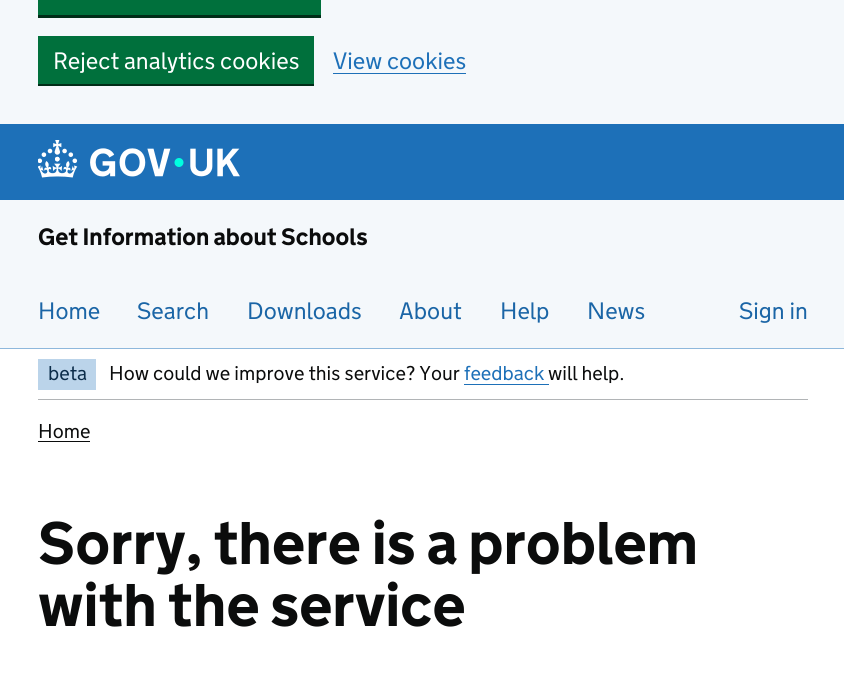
import math
import cairo



def draw_image(context, path, x, y, w, h):
    context.save()
    context.set_source_surface(cairo.ImageSurface.create_from_png(path), x, y)
    context.rectangle(x, y, w, h)
    context.fill()
    context.restore()


def draw(context):
    context.set_source_rgb(1, 1, 1)
    context.paint()
    context.set_source_rgb(244 / 255, 248 / 255, 251 / 255)
    context.rectangle(0, 0, 844, 124)
    context.fill()
    context.set_source_rgb(0, 45 / 255, 24 / 255)
    context.rectangle(38, 15, 283, 3)
    context.fill()
    context.set_source_rgb(0, 112 / 255, 60 / 255)
    context.rectangle(38, 0, 283, 15)
    context.fill()
    context.set_source_rgb(0, 45 / 255, 24 / 255)
    context.new_path()
    context.move_to(38, 84)
    context.line_to(38, 86)
    context.line_to(314, 86)
    context.line_to(314, 39)
    context.line_to(314, 84)
    context.close_path()
    context.fill()
    context.set_source_rgb(0, 112 / 255, 60 / 255)
    context.rectangle(38, 36, 276, 48)
    context.fill()
    context.set_source_rgb(29 / 255, 112 / 255, 184 / 255)
    context.rectangle(333, 73, 133, 1)
    context.fill()
    context.rectangle(0, 124, 844, 76)
    context.fill()
    draw_image(context, "images/1.png", 38, 140, 202, 38)
    context.set_source_rgb(244 / 255, 248 / 255, 251 / 255)
    context.rectangle(0, 200, 844, 148)
    context.fill()
    context.set_source_rgb(142 / 255, 184 / 255, 220 / 255)
    context.rectangle(0, 348, 844, 1)
    context.fill()
    context.set_source_rgb(177 / 255, 180 / 255, 182 / 255)
    context.rectangle(38, 399, 770, 1)
    context.fill()
    context.set_source_rgb(187 / 255, 212 / 255, 234 / 255)
    context.rectangle(38, 359, 58, 31)
    context.fill()
    context.set_source_rgb(29 / 255, 112 / 255, 184 / 255)
    context.rectangle(464, 384, 85, 1)
    context.fill()
    context.set_source_rgb(11 / 255, 12 / 255, 12 / 255)
    context.rectangle(38, 441, 52, 1)
    context.fill()
    context.select_font_face("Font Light")
    context.set_font_size(23.75)
    context.set_source_rgb(1, 1, 1)
    context.move_to(53, 69)
    context.show_text("Reject analytics cookies")
    context.set_source_rgb(29 / 255, 112 / 255, 184 / 255)
    context.move_to(333, 69)
    context.show_text("View cookies")
    context.select_font_face("Font", cairo.FontSlant.NORMAL, cairo.FontWeight.BOLD)
    context.set_source_rgb(11 / 255, 12 / 255, 12 / 255)
    context.move_to(38, 245)
    context.show_text("Get Information about Schools")
    context.select_font_face("Font Light")
    context.set_source_rgb(26 / 255, 101 / 255, 166 / 255)
    context.move_to(38, 319)
    context.show_text("Home")
    context.move_to(137, 319)
    context.show_text("Search")
    context.move_to(247, 319)
    context.show_text("Downloads")
    context.move_to(399, 319)
    context.show_text("About")
    context.move_to(500, 319)
    context.show_text("Help")
    context.move_to(587, 319)
    context.show_text("News")
    context.move_to(739, 319)
    context.show_text("Sign in")
    context.set_font_size(20)
    context.set_source_rgb(12 / 255, 45 / 255, 74 / 255)
    context.move_to(48, 380)
    context.show_text("beta")
    context.set_source_rgb(11 / 255, 12 / 255, 12 / 255)
    context.move_to(109, 380)
    context.show_text("How could we improve this service? Your")
    context.set_source_rgb(29 / 255, 112 / 255, 184 / 255)
    context.move_to(464, 380)
    context.show_text("feedback")
    context.set_source_rgb(11 / 255, 12 / 255, 12 / 255)
    context.move_to(548, 380)
    context.show_text("will help.")
    context.move_to(38, 438)
    context.show_text("Home")
    context.select_font_face("Font", cairo.FontSlant.NORMAL, cairo.FontWeight.BOLD)
    context.set_font_size(60)
    context.move_to(38, 564)
    context.show_text("Sorry, there is a problem")
    context.move_to(38, 626)
    context.show_text("with the service")


surface = cairo.ImageSurface(cairo.Format.RGB24, 844, 695)
context = cairo.Context(surface)
options = cairo.FontOptions()
options.set_hint_metrics(cairo.HintMetrics.OFF)
options.set_hint_style(cairo.HintStyle.NONE)
context.set_font_options(options)
context.set_miter_limit(4)
draw(context)
surface.write_to_png("out.png")
